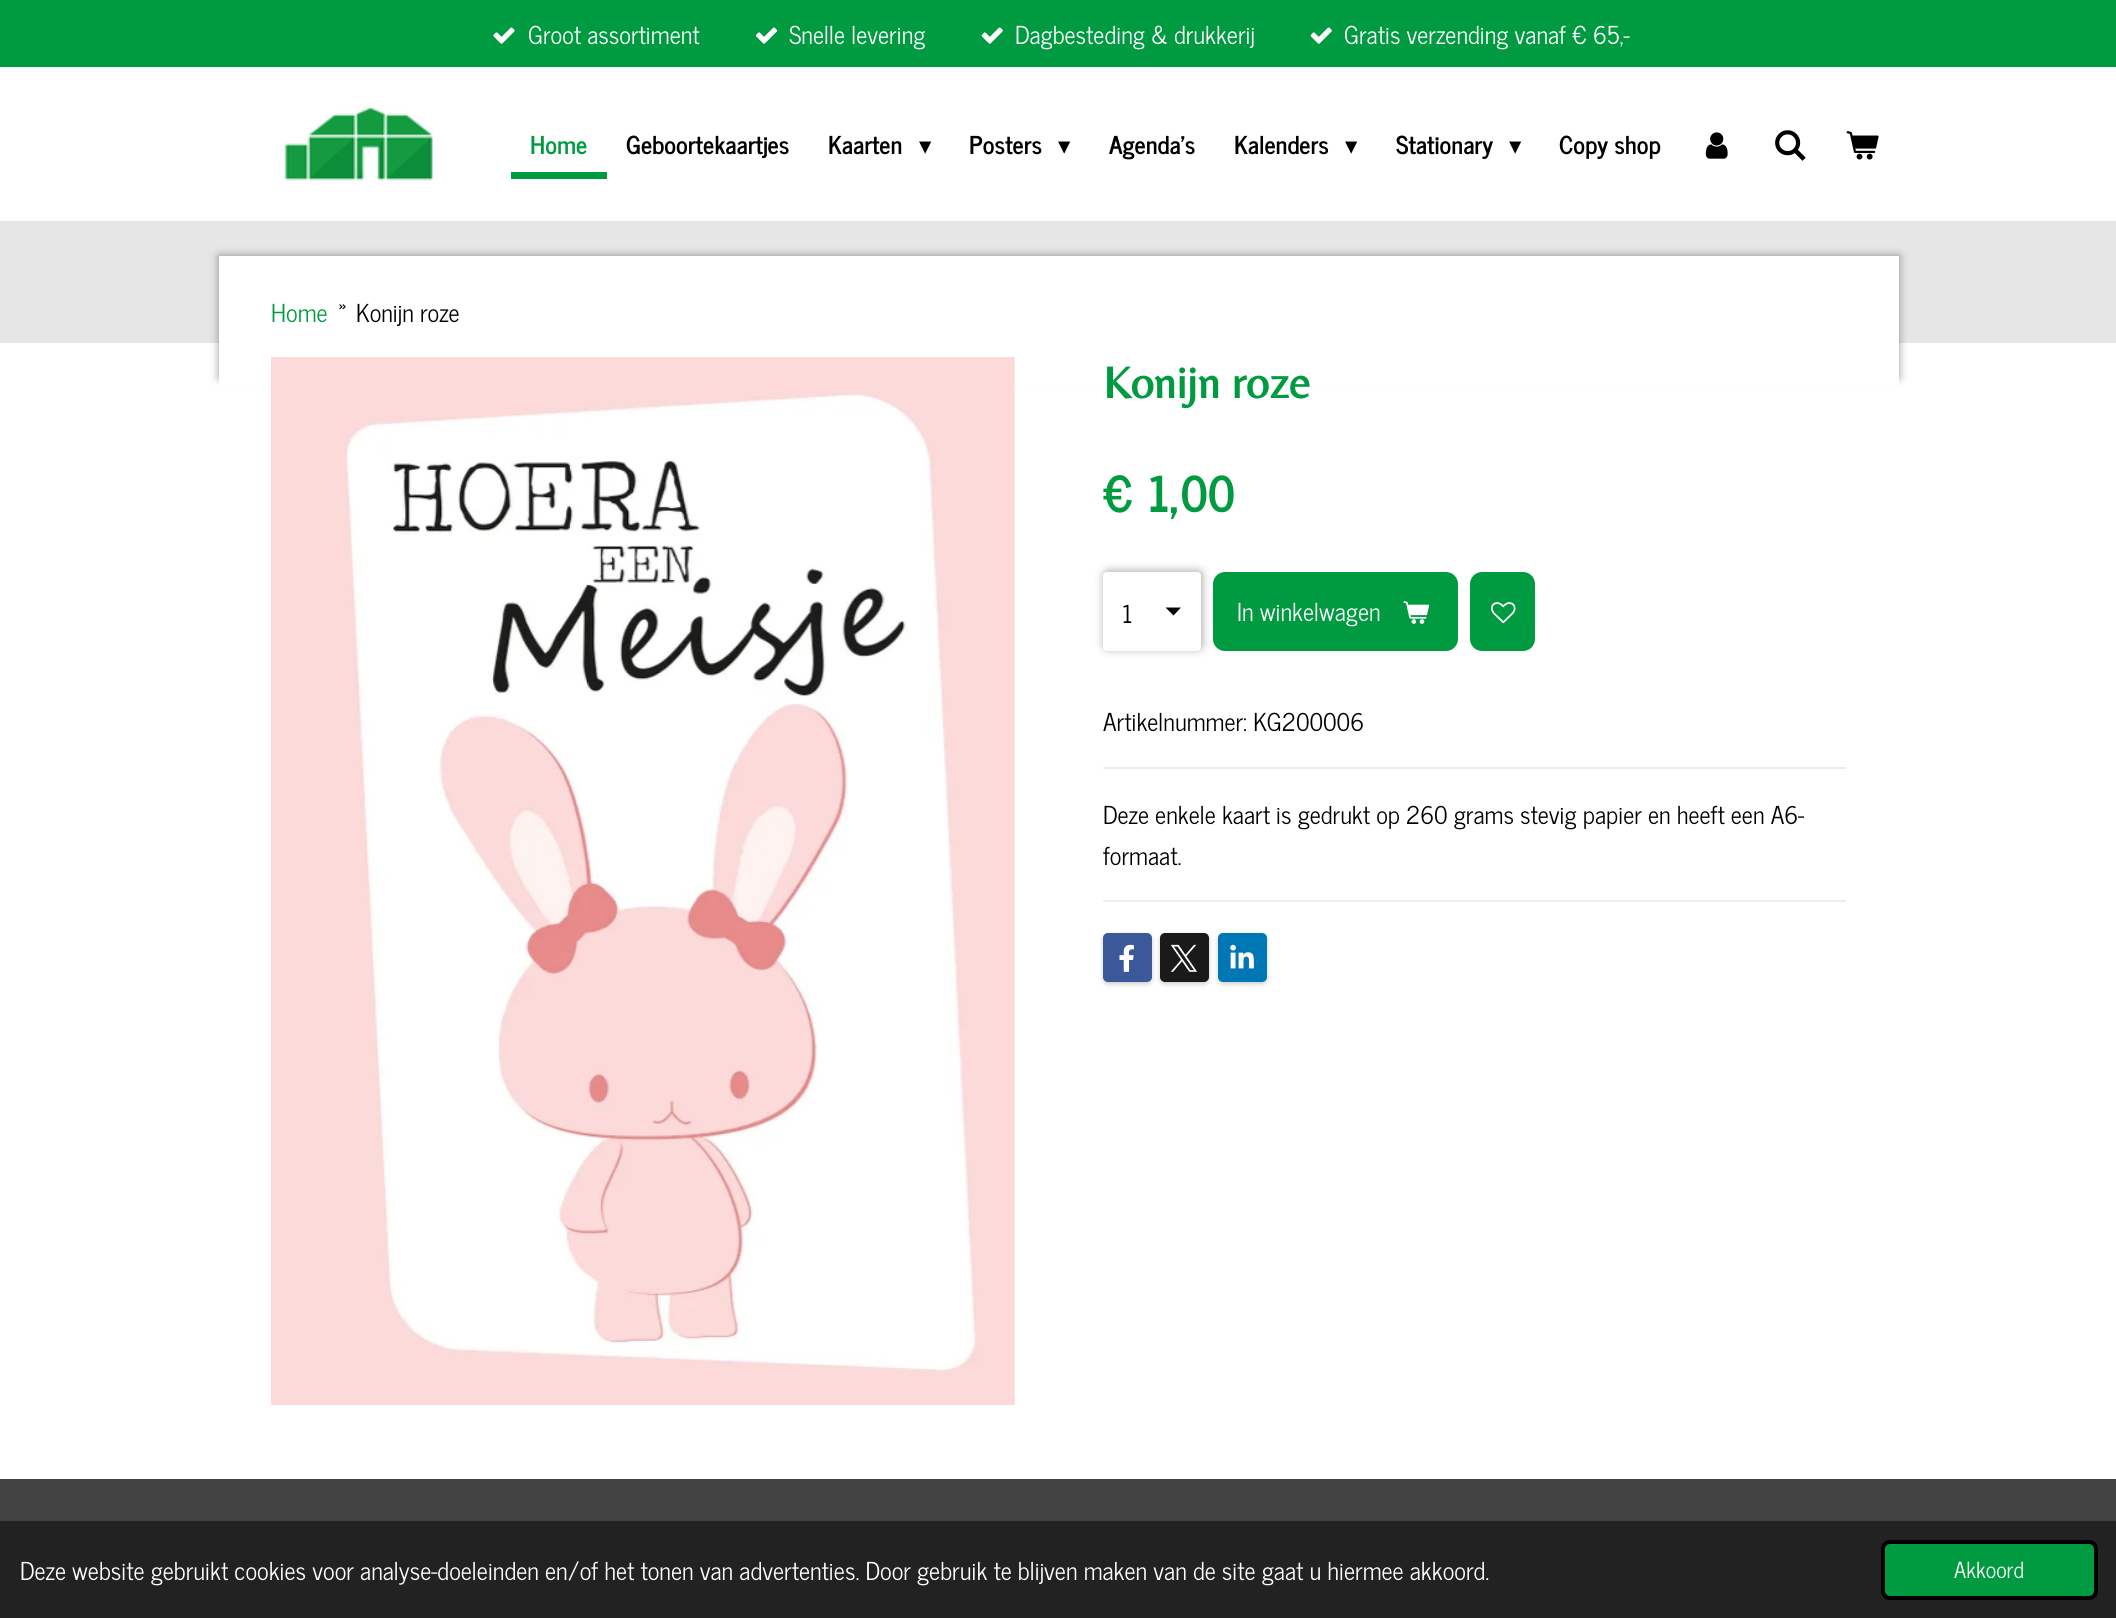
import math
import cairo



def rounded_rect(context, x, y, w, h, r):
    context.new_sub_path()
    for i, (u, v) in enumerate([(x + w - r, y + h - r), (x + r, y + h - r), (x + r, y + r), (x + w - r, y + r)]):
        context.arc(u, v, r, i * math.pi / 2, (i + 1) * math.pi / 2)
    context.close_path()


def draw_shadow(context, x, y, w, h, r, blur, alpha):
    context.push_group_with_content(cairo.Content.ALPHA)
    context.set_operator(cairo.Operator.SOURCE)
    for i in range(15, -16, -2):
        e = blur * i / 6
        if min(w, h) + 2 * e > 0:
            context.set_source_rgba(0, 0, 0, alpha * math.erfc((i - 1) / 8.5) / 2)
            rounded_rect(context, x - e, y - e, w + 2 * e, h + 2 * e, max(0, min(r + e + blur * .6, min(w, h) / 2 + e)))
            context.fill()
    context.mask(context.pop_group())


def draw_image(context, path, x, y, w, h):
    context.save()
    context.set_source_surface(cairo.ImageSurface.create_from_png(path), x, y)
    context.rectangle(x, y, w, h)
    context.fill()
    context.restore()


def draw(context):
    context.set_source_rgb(1, 1, 1)
    context.paint()
    context.set_source_rgb(0, 154 / 255, 64 / 255)
    context.rectangle(0, 0, 2116, 67)
    context.fill()
    draw_image(context, "images/1.png", 493, 27, 22, 17)
    draw_image(context, "images/2.png", 755, 27, 23, 17)
    draw_image(context, "images/3.png", 981, 27, 22, 17)
    draw_image(context, "images/3.png", 1310, 27, 22, 17)
    draw_image(context, "images/4.png", 284, 106, 149, 75)
    context.rectangle(511, 172, 96, 7)
    context.fill()
    draw_image(context, "images/5.png", 1705, 132, 23, 27)
    draw_image(context, "images/6.png", 1775, 130, 31, 31)
    draw_image(context, "images/7.png", 1846, 131, 33, 29)
    context.set_source_rgb(230 / 255, 230 / 255, 230 / 255)
    context.rectangle(0, 221, 2116, 122)
    context.fill()
    context.set_source_rgb(0, 0, 0)
    draw_shadow(context, 219, 256, 1680, 122, 0, 4.5, 0.4)
    context.set_source_rgb(1, 1, 1)
    context.rectangle(219, 256, 1680, 131)
    context.fill()
    draw_image(context, "images/8.png", 271, 357, 744, 1048)
    context.set_source_rgb(0, 0, 0)
    draw_shadow(context, 1104, 571, 98, 78, 4, 4.5, 0.35)
    context.set_source_rgb(1, 1, 1)
    rounded_rect(context, 1103, 572, 98, 79, 4)
    context.fill()
    context.set_source_rgb(0, 0, 0)
    context.new_path()
    context.move_to(1173.5, 615.5)
    context.line_to(1165.5, 607.5)
    context.line_to(1181, 607.5)
    context.close_path()
    context.fill()
    context.set_source_rgb(0, 154 / 255, 64 / 255)
    rounded_rect(context, 1213, 572, 245, 79, 12)
    context.fill()
    draw_image(context, "images/9.png", 1403, 601, 27, 23)
    rounded_rect(context, 1470, 572, 65, 79, 12)
    context.fill()
    draw_image(context, "images/10.png", 1491, 602, 25, 22)
    context.set_source_rgb(237 / 255, 237 / 255, 237 / 255)
    context.rectangle(1103, 767, 743, 2)
    context.fill()
    context.rectangle(1103, 900, 743, 2)
    context.fill()
    context.set_source_rgb(0, 0, 0)
    draw_shadow(context, 1103, 935, 49, 49, 5, 2.5, 0.2)
    context.set_source_rgb(59 / 255, 89 / 255, 152 / 255)
    rounded_rect(context, 1103, 933, 49, 49, 5)
    context.fill()
    draw_image(context, "images/11.png", 1119, 944, 15, 28)
    context.set_source_rgb(0, 0, 0)
    draw_shadow(context, 1160, 935, 49, 49, 5, 2.5, 0.2)
    context.set_source_rgb(26 / 255, 26 / 255, 26 / 255)
    rounded_rect(context, 1160, 933, 49, 49, 5)
    context.fill()
    draw_image(context, "images/12.png", 1170, 944, 27, 28)
    context.set_source_rgb(0, 0, 0)
    draw_shadow(context, 1218, 935, 49, 49, 5, 2.5, 0.2)
    context.set_source_rgb(0, 119 / 255, 181 / 255)
    rounded_rect(context, 1218, 933, 49, 49, 5)
    context.fill()
    draw_image(context, "images/13.png", 1230, 944, 24, 25)
    context.set_source_rgb(66 / 255, 66 / 255, 66 / 255)
    context.rectangle(0, 1479, 2116, 42)
    context.fill()
    context.set_source_rgb(34 / 255, 34 / 255, 34 / 255)
    context.rectangle(0, 1521, 2116, 97)
    context.fill()
    context.set_source_rgb(0, 154 / 255, 64 / 255)
    rounded_rect(context, 1883, 1542, 213, 56, 7)
    context.fill_preserve()
    context.set_source_rgb(0, 0, 0)
    context.set_line_width(4)
    context.stroke()
    context.select_font_face("News Cycle")
    context.set_font_size(24.5)
    context.set_source_rgb(1, 1, 1)
    context.move_to(528, 44)
    context.show_text("Groot assortiment")
    context.move_to(789, 44)
    context.show_text("Snelle levering")
    context.move_to(1015, 44)
    context.show_text("Dagbesteding & drukkerij")
    context.move_to(1344, 44)
    context.show_text("Gratis verzending vanaf € 65,-")
    context.select_font_face("News Cycle", cairo.FontSlant.NORMAL, cairo.FontWeight.BOLD)
    context.set_source_rgb(0, 154 / 255, 64 / 255)
    context.move_to(530, 154)
    context.show_text("Home")
    context.set_source_rgb(0, 0, 0)
    context.move_to(626, 154)
    context.show_text("Geboortekaartjes")
    context.move_to(828, 154)
    context.show_text("Kaarten")
    context.select_font_face("DejaVu Sans")
    context.move_to(919, 154)
    context.show_text("▾")
    context.select_font_face("News Cycle", cairo.FontSlant.NORMAL, cairo.FontWeight.BOLD)
    context.move_to(969, 154)
    context.show_text("Posters")
    context.select_font_face("DejaVu Sans")
    context.move_to(1058, 154)
    context.show_text("▾")
    context.select_font_face("News Cycle", cairo.FontSlant.NORMAL, cairo.FontWeight.BOLD)
    context.move_to(1109, 154)
    context.show_text("Agenda's")
    context.move_to(1234, 154)
    context.show_text("Kalenders")
    context.select_font_face("DejaVu Sans")
    context.move_to(1345, 154)
    context.show_text("▾")
    context.select_font_face("News Cycle", cairo.FontSlant.NORMAL, cairo.FontWeight.BOLD)
    context.move_to(1396, 154)
    context.show_text("Stationary")
    context.select_font_face("DejaVu Sans")
    context.move_to(1509, 154)
    context.show_text("▾")
    context.select_font_face("News Cycle", cairo.FontSlant.NORMAL, cairo.FontWeight.BOLD)
    context.move_to(1559, 154)
    context.show_text("Copy shop")
    context.select_font_face("News Cycle")
    context.set_source_rgb(0, 154 / 255, 64 / 255)
    context.move_to(271, 322)
    context.show_text("Home")
    context.set_source_rgb(0, 0, 0)
    context.move_to(338, 322)
    context.show_text("»")
    context.move_to(356, 322)
    context.show_text("Konijn roze")
    context.select_font_face("Belleza", cairo.FontSlant.NORMAL, cairo.FontWeight.BOLD)
    context.set_font_size(45.5)
    context.set_source_rgb(0, 154 / 255, 64 / 255)
    context.move_to(1103, 398)
    context.show_text("Konijn roze")
    context.select_font_face("News Cycle", cairo.FontSlant.NORMAL, cairo.FontWeight.BOLD)
    context.set_font_size(49)
    context.move_to(1103, 512)
    context.show_text("€ 1,00")
    context.select_font_face("News Cycle")
    context.set_font_size(24.5)
    context.set_source_rgb(0, 0, 0)
    context.move_to(1122, 623)
    context.show_text("1")
    context.set_source_rgb(1, 1, 1)
    context.move_to(1237, 621)
    context.show_text("In winkelwagen")
    context.set_source_rgb(0, 0, 0)
    context.move_to(1103, 731)
    context.show_text("Artikelnummer: KG200006")
    context.move_to(1103, 824)
    context.show_text("Deze enkele kaart is gedrukt op 260 grams stevig papier en heeft een A6-")
    context.move_to(1103, 865)
    context.show_text("formaat.")
    context.set_source_rgb(1, 1, 1)
    context.move_to(20, 1580)
    context.show_text("Deze website gebruikt cookies voor analyse-doeleinden en/of het tonen van advertenties. Door gebruik te blijven maken van de site gaat u hiermee akkoord.")
    context.set_font_size(22)
    context.move_to(1954, 1578)
    context.show_text("Akkoord")


surface = cairo.ImageSurface(cairo.Format.RGB24, 2116, 1618)
context = cairo.Context(surface)
options = cairo.FontOptions()
options.set_hint_metrics(cairo.HintMetrics.OFF)
options.set_hint_style(cairo.HintStyle.NONE)
context.set_font_options(options)
context.set_miter_limit(4)
draw(context)
surface.write_to_png("out.png")
